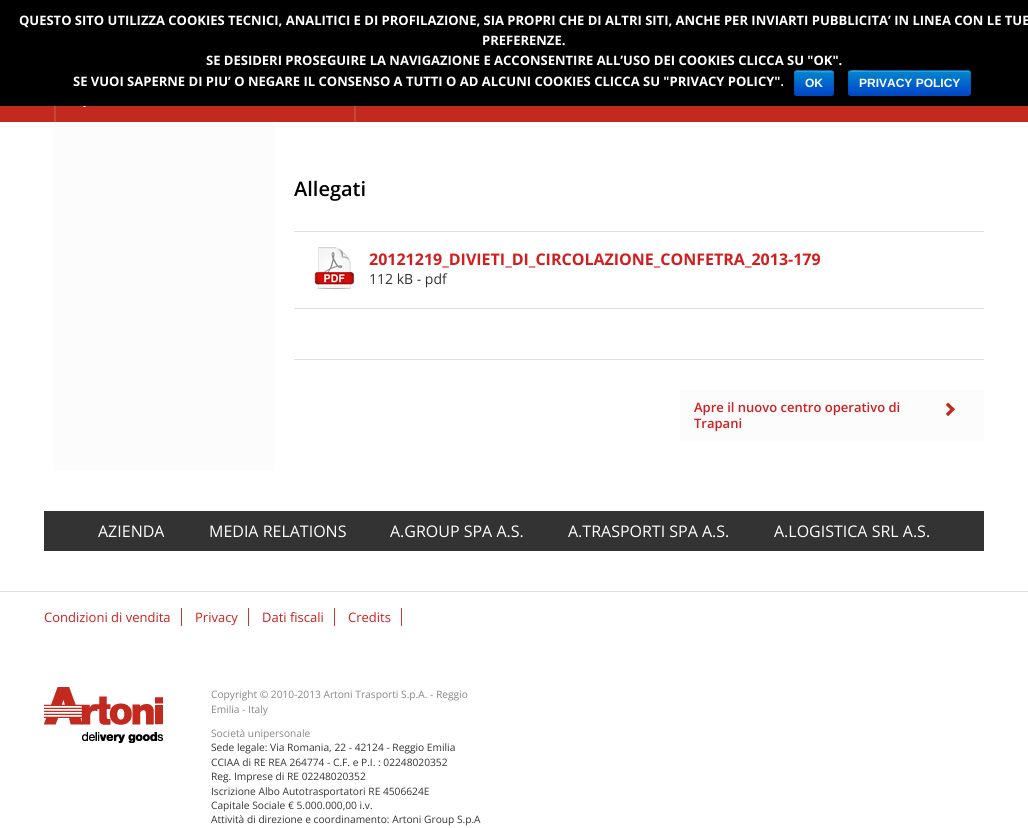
import math
import cairo



def rounded_rect(context, x, y, w, h, r):
    context.new_sub_path()
    for i, (u, v) in enumerate([(x + w - r, y + h - r), (x + r, y + h - r), (x + r, y + r), (x + w - r, y + r)]):
        context.arc(u, v, r, i * math.pi / 2, (i + 1) * math.pi / 2)
    context.close_path()


def draw_image(context, path, x, y, w, h):
    context.save()
    context.set_source_surface(cairo.ImageSurface.create_from_png(path), x, y)
    context.rectangle(x, y, w, h)
    context.fill()
    context.restore()


def draw(context):
    context.set_source_rgb(1, 1, 1)
    context.paint()
    context.set_source_rgb(0, 0, 0)
    context.rectangle(0, 0, 1028, 106)
    context.fill()
    context.set_source_rgb(0, 109 / 255, 204 / 255)
    rounded_rect(context, 794, 70, 40, 26, 3)
    context.fill()
    context.save()
    rounded_rect(context, 794, 70, 40, 26, 3)
    context.clip()
    gradient = cairo.LinearGradient(814, 71, 814, 95)
    gradient.add_color_stop_rgba(0, 0, 136 / 255, 204 / 255, 1)
    gradient.add_color_stop_rgba(1, 0, 68 / 255, 204 / 255, 1)
    context.set_source(gradient)
    context.rectangle(794, 71, 40, 24)
    context.fill()
    context.restore()
    context.set_source_rgba(1, 1, 1, 0.2)
    context.set_fill_rule(cairo.FillRule.EVEN_ODD)
    context.new_path()
    context.move_to(797, 72)
    context.line_to(831.5, 72.5)
    context.curve_to(832, 72.5, 832.5, 72.5, 833, 73.5)
    context.curve_to(833, 69.5, 827, 71, 825.5, 71)
    context.line_to(802.5, 71)
    context.curve_to(797.5, 71, 795, 69.5, 795, 74.5)
    context.curve_to(795, 73, 796, 72, 797, 72)
    context.close_path()
    context.move_to(795, 93.5)
    context.line_to(795, 93)
    context.close_path()
    context.fill()
    context.new_path()
    context.move_to(833, 95)
    context.line_to(831, 95.5)
    context.line_to(797, 95.5)
    context.line_to(795, 95)
    context.set_source_rgba(0, 0, 0, 0.25)
    context.set_line_width(1)
    context.stroke()
    context.new_path()
    context.move_to(795, 95)
    context.curve_to(795, 94.5, 794.5, 93.5, 794.5, 93)
    context.line_to(794.5, 73)
    context.curve_to(794.5, 72.5, 795, 71.5, 795, 71)
    context.curve_to(795.5, 71, 796.5, 70.5, 797, 70.5)
    context.line_to(831, 70.5)
    context.curve_to(831.5, 70.5, 832.5, 71, 833, 71)
    context.curve_to(833, 71.5, 833.5, 72.5, 833.5, 73)
    context.line_to(833.5, 93)
    context.curve_to(833.5, 93.5, 833, 94.5, 833, 95)
    context.set_source_rgba(0, 0, 0, 0.1)
    context.stroke()
    context.set_source_rgb(0, 109 / 255, 204 / 255)
    rounded_rect(context, 848, 70, 123, 26, 3)
    context.fill()
    context.save()
    context.set_fill_rule(cairo.FillRule.WINDING)
    rounded_rect(context, 848, 70, 123, 26, 3)
    context.clip()
    gradient = cairo.LinearGradient(910, 71, 910, 95)
    gradient.add_color_stop_rgba(0, 0, 136 / 255, 204 / 255, 1)
    gradient.add_color_stop_rgba(1, 0, 68 / 255, 204 / 255, 1)
    context.set_source(gradient)
    context.rectangle(848, 71, 123, 24)
    context.fill()
    context.restore()
    context.set_source_rgba(1, 1, 1, 0.2)
    context.set_fill_rule(cairo.FillRule.WINDING)
    context.new_path()
    context.move_to(851, 72)
    context.line_to(968, 72)
    context.line_to(970, 73)
    context.line_to(970, 74)
    context.curve_to(970, 73, 970, 72, 969, 71)
    context.line_to(870, 71)
    context.curve_to(864, 71, 849, 67, 849, 74)
    context.curve_to(849, 73, 850, 72, 851, 72)
    context.close_path()
    context.fill()
    context.new_path()
    context.move_to(970, 95)
    context.line_to(968, 95.5)
    context.line_to(851, 95.5)
    context.line_to(849, 95)
    context.set_source_rgba(0, 0, 0, 0.25)
    context.stroke()
    context.new_path()
    context.move_to(849, 95)
    context.curve_to(847.5, 93, 848.5, 85.5, 848.5, 83)
    context.line_to(848.5, 76.5)
    context.curve_to(848.5, 74.5, 848, 70.5, 851, 70.5)
    context.line_to(968, 70.5)
    context.curve_to(971, 70.5, 970.5, 74.5, 970.5, 76.5)
    context.line_to(970.5, 83)
    context.curve_to(970.5, 85.5, 971.5, 93, 970, 95)
    context.set_source_rgba(0, 0, 0, 0.1)
    context.stroke()
    context.set_source_rgb(195 / 255, 42 / 255, 31 / 255)
    context.rectangle(0, 106, 1028, 16)
    context.fill()
    context.set_source_rgb(199 / 255, 70 / 255, 55 / 255)
    context.rectangle(54, 106, 2, 16)
    context.fill()
    context.rectangle(354, 106, 2, 16)
    context.fill()
    draw_image(context, "images/1.png", 83, 106, 3, 1)
    context.set_source_rgb(252 / 255, 252 / 255, 252 / 255)
    context.rectangle(54, 122, 220, 349)
    context.fill()
    context.set_source_rgb(220 / 255, 221 / 255, 220 / 255)
    context.rectangle(294, 231, 690, 1)
    context.fill()
    context.rectangle(294, 308, 690, 1)
    context.fill()
    draw_image(context, "images/2.png", 314, 247, 40, 43)
    context.rectangle(294, 359, 690, 1)
    context.fill()
    context.set_source_rgb(251 / 255, 252 / 255, 251 / 255)
    context.rectangle(680, 390, 304, 51)
    context.fill()
    draw_image(context, "images/3.png", 946, 402, 9, 14)
    context.set_source_rgb(51 / 255, 51 / 255, 51 / 255)
    context.rectangle(44, 511, 940, 40)
    context.fill()
    context.set_source_rgb(221 / 255, 221 / 255, 221 / 255)
    context.rectangle(0, 591, 1028, 1)
    context.fill()
    context.set_source_rgb(196 / 255, 56 / 255, 37 / 255)
    context.rectangle(181, 608, 1, 18)
    context.fill()
    context.rectangle(248, 608, 1, 18)
    context.fill()
    context.rectangle(334, 608, 1, 18)
    context.fill()
    context.rectangle(401, 608, 1, 18)
    context.fill()
    draw_image(context, "images/4.png", 44, 687, 119, 56)
    context.select_font_face("Open Sans", cairo.FontSlant.NORMAL, cairo.FontWeight.BOLD)
    context.set_font_size(13)
    context.set_source_rgb(1, 1, 1)
    context.move_to(19, 25)
    context.show_text("QUESTO SITO UTILIZZA COOKIES TECNICI, ANALITICI E DI PROFILAZIONE, SIA PROPRI CHE DI ALTRI SITI, ANCHE PER INVIARTI PUBBLICITA’ IN LINEA CON LE TUE")
    context.move_to(482, 45)
    context.show_text("PREFERENZE.")
    context.move_to(206, 65)
    context.show_text("SE DESIDERI PROSEGUIRE LA NAVIGAZIONE E ACCONSENTIRE ALL’USO DEI COOKIES CLICCA SU \"OK\".")
    context.move_to(73, 86)
    context.show_text("SE VUOI SAPERNE DI PIU’ O NEGARE IL CONSENSO A TUTTI O AD ALCUNI COOKIES CLICCA SU \"PRIVACY POLICY\".")
    context.select_font_face("Liberation Sans", cairo.FontSlant.NORMAL, cairo.FontWeight.BOLD)
    context.set_font_size(12)
    context.move_to(805, 87)
    context.show_text("OK")
    context.move_to(859, 87)
    context.show_text("PRIVACY POLICY")
    context.select_font_face("Open Sans SemiBold")
    context.set_font_size(20)
    context.set_source_rgb(0, 0, 0)
    context.move_to(294, 196)
    context.show_text("Allegati")
    context.select_font_face("Open Sans", cairo.FontSlant.NORMAL, cairo.FontWeight.BOLD)
    context.set_font_size(16)
    context.set_source_rgb(209 / 255, 31 / 255, 31 / 255)
    context.move_to(369, 265)
    context.show_text("20121219_DIVIETI_DI_CIRCOLAZIONE_CONFETRA_2013-179")
    context.select_font_face("Open Sans")
    context.set_font_size(14)
    context.set_source_rgb(51 / 255, 51 / 255, 51 / 255)
    context.move_to(369, 284)
    context.show_text("112 kB - pdf")
    context.select_font_face("Open Sans SemiBold")
    context.set_font_size(13)
    context.set_source_rgb(209 / 255, 31 / 255, 31 / 255)
    context.move_to(694, 412)
    context.show_text("Apre il nuovo centro operativo di")
    context.move_to(694, 428)
    context.show_text("Trapani")
    context.select_font_face("Open Sans")
    context.set_font_size(16)
    context.set_source_rgb(1, 1, 1)
    context.move_to(98, 537)
    context.show_text("AZIENDA")
    context.move_to(209, 537)
    context.show_text("MEDIA RELATIONS")
    context.move_to(390, 537)
    context.show_text("A.GROUP SPA A.S.")
    context.move_to(568, 537)
    context.show_text("A.TRASPORTI SPA A.S.")
    context.move_to(774, 537)
    context.show_text("A.LOGISTICA SRL A.S.")
    context.set_font_size(13)
    context.set_source_rgb(209 / 255, 31 / 255, 31 / 255)
    context.move_to(44, 622)
    context.show_text("Condizioni di vendita")
    context.move_to(195, 622)
    context.show_text("Privacy")
    context.move_to(262, 622)
    context.show_text("Dati fiscali")
    context.move_to(348, 622)
    context.show_text("Credits")
    context.set_font_size(10.2)
    context.set_source_rgb(134 / 255, 134 / 255, 134 / 255)
    context.move_to(211, 698)
    context.show_text("Copyright © 2010-2013 Artoni Trasporti S.p.A. - Reggio")
    context.move_to(211, 713)
    context.show_text("Emilia - Italy")
    context.move_to(211, 737)
    context.show_text("Società unipersonale")
    context.set_source_rgb(51 / 255, 51 / 255, 51 / 255)
    context.move_to(211, 751)
    context.show_text("Sede legale: Via Romania, 22 - 42124 - Reggio Emilia")
    context.move_to(211, 766)
    context.show_text("CCIAA di RE REA 264774 - C.F. e P.I. : 02248020352")
    context.move_to(211, 780)
    context.show_text("Reg. Imprese di RE 02248020352")
    context.move_to(211, 795)
    context.show_text("Iscrizione Albo Autotrasportatori RE 4506624E")
    context.move_to(211, 809)
    context.show_text("Capitale Sociale € 5.000.000,00 i.v.")
    context.move_to(211, 823)
    context.show_text("Attività di direzione e coordinamento: Artoni Group S.p.A")


surface = cairo.ImageSurface(cairo.Format.RGB24, 1028, 828)
context = cairo.Context(surface)
options = cairo.FontOptions()
options.set_hint_metrics(cairo.HintMetrics.OFF)
options.set_hint_style(cairo.HintStyle.NONE)
context.set_font_options(options)
context.set_miter_limit(4)
draw(context)
surface.write_to_png("out.png")
